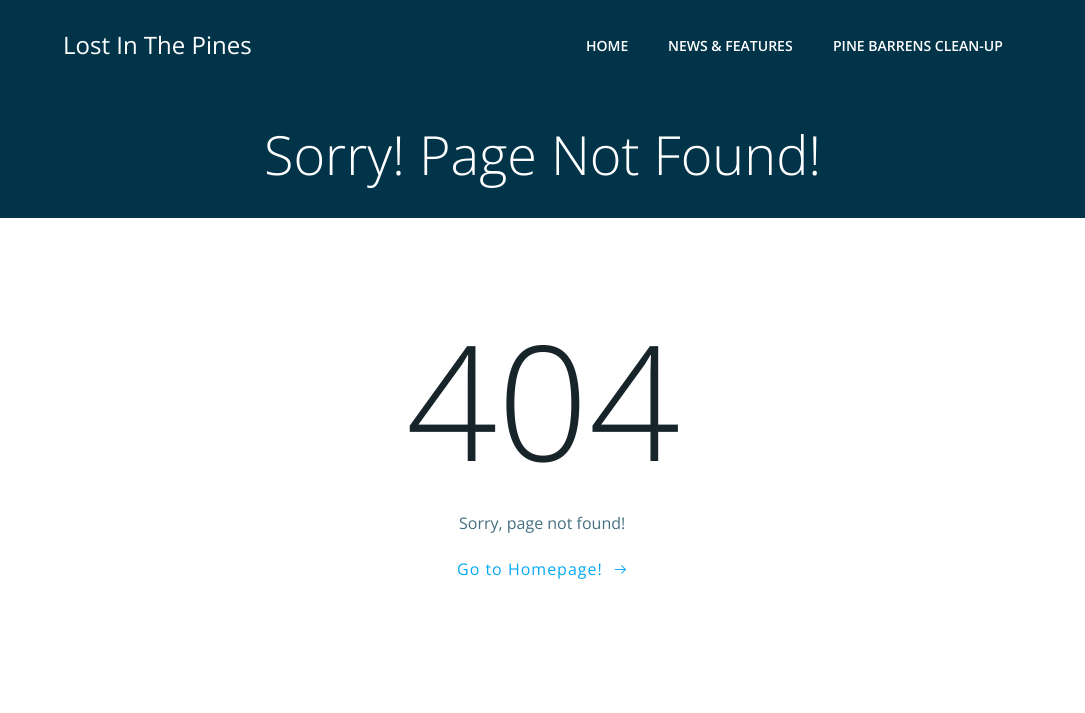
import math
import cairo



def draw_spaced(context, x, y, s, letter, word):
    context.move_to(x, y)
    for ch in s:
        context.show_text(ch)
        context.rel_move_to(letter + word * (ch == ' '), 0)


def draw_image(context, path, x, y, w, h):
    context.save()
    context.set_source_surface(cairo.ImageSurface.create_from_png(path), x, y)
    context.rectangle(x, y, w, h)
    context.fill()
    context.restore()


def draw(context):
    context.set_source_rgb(1, 1, 1)
    context.paint()
    context.set_source_rgb(1 / 255, 51 / 255, 73 / 255)
    context.rectangle(0, 0, 1085, 218)
    context.fill()
    draw_image(context, "images/1.png", 614, 565, 12, 9)
    context.select_font_face("Open Sans")
    context.set_font_size(24)
    context.set_source_rgb(1, 1, 1)
    context.move_to(63, 54)
    context.show_text("Lost In The Pines")
    context.select_font_face("Open Sans SemiBold")
    context.set_font_size(14)
    context.move_to(586, 51)
    context.show_text("HOME")
    context.move_to(668, 51)
    context.show_text("NEWS & FEATURES")
    context.move_to(833, 51)
    context.show_text("PINE BARRENS CLEAN-UP")
    context.select_font_face("Open Sans Light")
    context.set_font_size(54)
    context.move_to(264, 175)
    context.show_text("Sorry! Page Not Found!")
    context.set_font_size(160)
    context.set_source_rgb(23 / 255, 37 / 255, 42 / 255)
    context.move_to(406, 461)
    context.show_text("404")
    context.select_font_face("Open Sans")
    context.set_font_size(16)
    context.set_source_rgb(70 / 255, 112 / 255, 127 / 255)
    context.move_to(459, 529)
    context.show_text("Sorry, page not found!")
    context.set_source_rgb(3 / 255, 169 / 255, 244 / 255)
    draw_spaced(context, 457, 575, "Go to Homepage!", 1, 0)


surface = cairo.ImageSurface(cairo.Format.RGB24, 1085, 713)
context = cairo.Context(surface)
options = cairo.FontOptions()
options.set_hint_metrics(cairo.HintMetrics.OFF)
options.set_hint_style(cairo.HintStyle.NONE)
context.set_font_options(options)
context.set_miter_limit(4)
draw(context)
surface.write_to_png("out.png")
